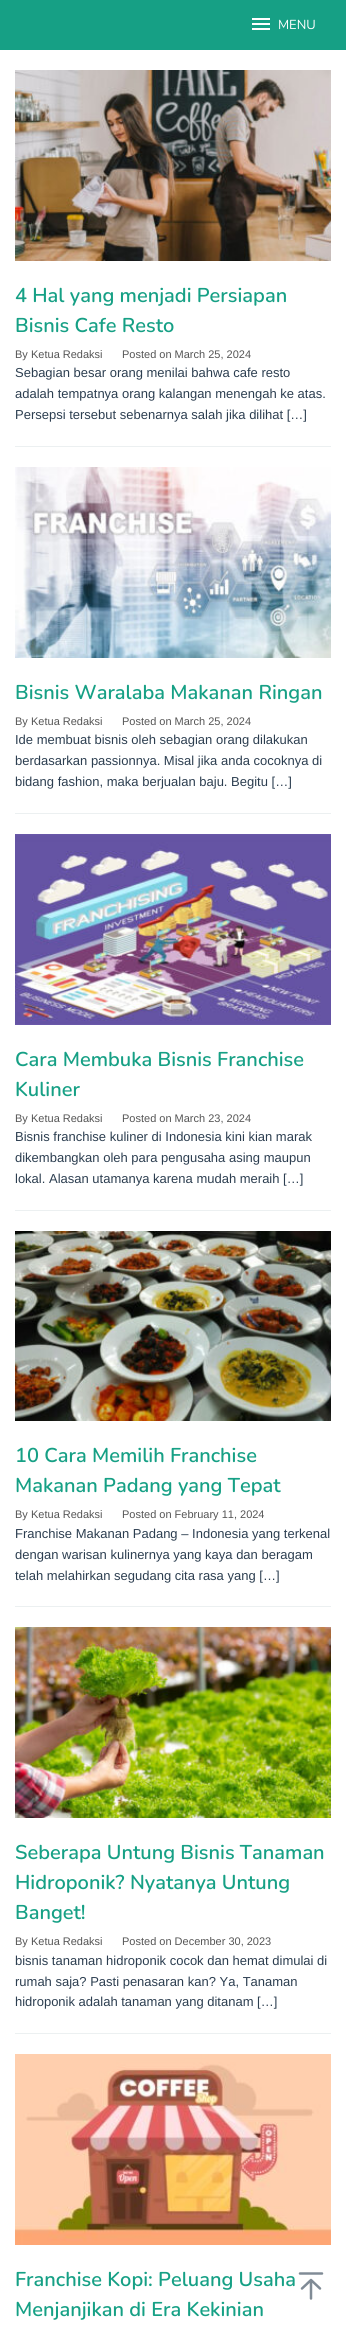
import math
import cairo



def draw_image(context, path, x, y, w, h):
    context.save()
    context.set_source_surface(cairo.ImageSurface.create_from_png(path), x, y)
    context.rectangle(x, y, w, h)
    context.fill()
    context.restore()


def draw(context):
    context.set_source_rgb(1, 1, 1)
    context.paint()
    context.set_source_rgb(22 / 255, 160 / 255, 133 / 255)
    context.rectangle(0, 0, 346, 50)
    context.fill()
    draw_image(context, "images/1.png", 252, 18, 18, 12)
    context.set_source_rgb(236 / 255, 240 / 255, 241 / 255)
    context.rectangle(15, 446, 316, 1)
    context.fill()
    draw_image(context, "images/2.png", 15, 70, 316, 191)
    context.rectangle(15, 813, 316, 1)
    context.fill()
    draw_image(context, "images/3.png", 15, 467, 316, 191)
    context.rectangle(15, 1210, 316, 1)
    context.fill()
    draw_image(context, "images/4.png", 15, 834, 316, 191)
    context.rectangle(15, 1606, 316, 1)
    context.fill()
    draw_image(context, "images/5.png", 15, 1231, 316, 190)
    context.rectangle(15, 2033, 316, 1)
    context.fill()
    draw_image(context, "images/6.png", 15, 1627, 316, 191)
    draw_image(context, "images/7.png", 15, 2054, 316, 191)
    context.new_path()
    context.move_to(311, 2298.5)
    context.line_to(311, 2280)
    context.move_to(302, 2288.5)
    context.line_to(311, 2280)
    context.line_to(320, 2288.5)
    context.move_to(300, 2273.5)
    context.line_to(322, 2273.5)
    context.set_source_rgb(128 / 255, 139 / 255, 150 / 255)
    context.set_line_width(2.5)
    context.set_line_cap(cairo.LineCap.ROUND)
    context.set_line_join(cairo.LineJoin.ROUND)
    context.stroke()
    context.select_font_face("Nunito")
    context.set_font_size(13)
    context.set_source_rgb(1, 1, 1)
    context.move_to(278, 29)
    context.show_text("MENU")
    context.select_font_face("Nunito SemiBold")
    context.set_font_size(20)
    context.set_source_rgb(22 / 255, 160 / 255, 133 / 255)
    context.move_to(15, 302)
    context.show_text("4 Hal yang menjadi Persiapan")
    context.move_to(15, 332)
    context.show_text("Bisnis Cafe Resto")
    context.select_font_face("Liberation Sans")
    context.set_font_size(11)
    context.set_source_rgb(85 / 255, 85 / 255, 85 / 255)
    context.move_to(15, 358)
    context.show_text("By")
    context.move_to(31, 358)
    context.show_text("Ketua Redaksi")
    context.move_to(122, 358)
    context.show_text("Posted on March 25, 2024")
    context.set_font_size(13)
    context.set_source_rgb(44 / 255, 62 / 255, 80 / 255)
    context.move_to(15, 377)
    context.show_text("Sebagian besar orang menilai bahwa cafe resto")
    context.move_to(15, 398)
    context.show_text("adalah tempatnya orang kalangan menengah ke atas.")
    context.move_to(15, 419)
    context.show_text("Persepsi tersebut sebenarnya salah jika dilihat […]")
    context.select_font_face("Nunito SemiBold")
    context.set_font_size(20)
    context.set_source_rgb(22 / 255, 160 / 255, 133 / 255)
    context.move_to(15, 699)
    context.show_text("Bisnis Waralaba Makanan Ringan")
    context.select_font_face("Liberation Sans")
    context.set_font_size(11)
    context.set_source_rgb(85 / 255, 85 / 255, 85 / 255)
    context.move_to(15, 725)
    context.show_text("By")
    context.move_to(31, 725)
    context.show_text("Ketua Redaksi")
    context.move_to(122, 725)
    context.show_text("Posted on March 25, 2024")
    context.set_font_size(13)
    context.set_source_rgb(44 / 255, 62 / 255, 80 / 255)
    context.move_to(15, 744)
    context.show_text("Ide membuat bisnis oleh sebagian orang dilakukan")
    context.move_to(15, 765)
    context.show_text("berdasarkan passionnya. Misal jika anda cocoknya di")
    context.move_to(15, 786)
    context.show_text("bidang fashion, maka berjualan baju. Begitu […]")
    context.select_font_face("Nunito SemiBold")
    context.set_font_size(20)
    context.set_source_rgb(22 / 255, 160 / 255, 133 / 255)
    context.move_to(15, 1066)
    context.show_text("Cara Membuka Bisnis Franchise")
    context.move_to(15, 1096)
    context.show_text("Kuliner")
    context.select_font_face("Liberation Sans")
    context.set_font_size(11)
    context.set_source_rgb(85 / 255, 85 / 255, 85 / 255)
    context.move_to(15, 1122)
    context.show_text("By")
    context.move_to(31, 1122)
    context.show_text("Ketua Redaksi")
    context.move_to(122, 1122)
    context.show_text("Posted on March 23, 2024")
    context.set_font_size(13)
    context.set_source_rgb(44 / 255, 62 / 255, 80 / 255)
    context.move_to(15, 1141)
    context.show_text("Bisnis franchise kuliner di Indonesia kini kian marak")
    context.move_to(15, 1162)
    context.show_text("dikembangkan oleh para pengusaha asing maupun")
    context.move_to(15, 1183)
    context.show_text("lokal. Alasan utamanya karena mudah meraih […]")
    context.select_font_face("Nunito SemiBold")
    context.set_font_size(20)
    context.set_source_rgb(22 / 255, 160 / 255, 133 / 255)
    context.move_to(15, 1462)
    context.show_text("10 Cara Memilih Franchise")
    context.move_to(15, 1492)
    context.show_text("Makanan Padang yang Tepat")
    context.select_font_face("Liberation Sans")
    context.set_font_size(11)
    context.set_source_rgb(85 / 255, 85 / 255, 85 / 255)
    context.move_to(15, 1518)
    context.show_text("By")
    context.move_to(31, 1518)
    context.show_text("Ketua Redaksi")
    context.move_to(122, 1518)
    context.show_text("Posted on February 11, 2024")
    context.set_font_size(13)
    context.set_source_rgb(44 / 255, 62 / 255, 80 / 255)
    context.move_to(15, 1538)
    context.show_text("Franchise Makanan Padang – Indonesia yang terkenal")
    context.move_to(15, 1559)
    context.show_text("dengan warisan kulinernya yang kaya dan beragam")
    context.move_to(15, 1580)
    context.show_text("telah melahirkan segudang cita rasa yang […]")
    context.select_font_face("Nunito SemiBold")
    context.set_font_size(20)
    context.set_source_rgb(22 / 255, 160 / 255, 133 / 255)
    context.move_to(15, 1859)
    context.show_text("Seberapa Untung Bisnis Tanaman")
    context.move_to(15, 1889)
    context.show_text("Hidroponik? Nyatanya Untung")
    context.move_to(15, 1919)
    context.show_text("Banget!")
    context.select_font_face("Liberation Sans")
    context.set_font_size(11)
    context.set_source_rgb(85 / 255, 85 / 255, 85 / 255)
    context.move_to(15, 1945)
    context.show_text("By")
    context.move_to(31, 1945)
    context.show_text("Ketua Redaksi")
    context.move_to(122, 1945)
    context.show_text("Posted on December 30, 2023")
    context.set_font_size(13)
    context.set_source_rgb(44 / 255, 62 / 255, 80 / 255)
    context.move_to(15, 1965)
    context.show_text("bisnis tanaman hidroponik cocok dan hemat dimulai di")
    context.move_to(15, 1986)
    context.show_text("rumah saja? Pasti penasaran kan? Ya, Tanaman")
    context.move_to(15, 2006)
    context.show_text("hidroponik adalah tanaman yang ditanam […]")
    context.select_font_face("Nunito SemiBold")
    context.set_font_size(20)
    context.set_source_rgb(22 / 255, 160 / 255, 133 / 255)
    context.move_to(15, 2286)
    context.show_text("Franchise Kopi: Peluang Usaha")
    context.move_to(15, 2316)
    context.show_text("Menjanjikan di Era Kekinian")


surface = cairo.ImageSurface(cairo.Format.RGB24, 346, 2325)
context = cairo.Context(surface)
options = cairo.FontOptions()
options.set_hint_metrics(cairo.HintMetrics.OFF)
options.set_hint_style(cairo.HintStyle.NONE)
context.set_font_options(options)
context.set_miter_limit(4)
draw(context)
surface.write_to_png("out.png")
